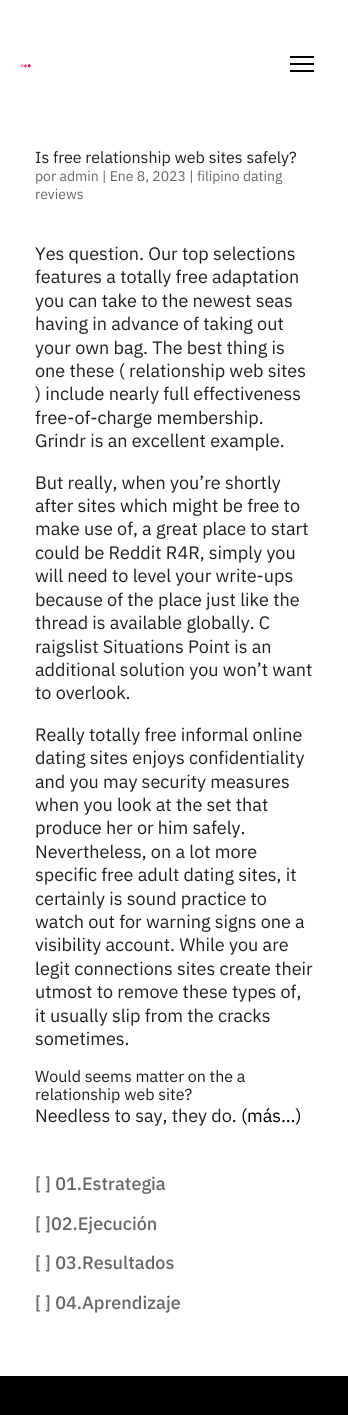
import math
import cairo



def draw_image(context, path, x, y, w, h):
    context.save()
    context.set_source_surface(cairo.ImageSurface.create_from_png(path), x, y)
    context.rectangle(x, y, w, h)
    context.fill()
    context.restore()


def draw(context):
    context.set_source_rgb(1, 1, 1)
    context.paint()
    draw_image(context, "images/1.png", 20, 64, 11, 4)
    context.set_source_rgb(0, 0, 0)
    context.rectangle(290, 63, 24, 2)
    context.fill()
    context.rectangle(290, 56, 24, 2)
    context.fill()
    context.rectangle(290, 70, 24, 2)
    context.fill()
    context.rectangle(0, 1376, 348, 39)
    context.fill()
    context.select_font_face("IBM Plex Sans")
    context.set_font_size(16)
    context.set_source_rgb(31 / 255, 31 / 255, 31 / 255)
    context.move_to(35, 163)
    context.show_text("Is free relationship web sites safely?")
    context.set_font_size(14)
    context.set_source_rgb(102 / 255, 102 / 255, 102 / 255)
    context.move_to(35, 181)
    context.show_text("por admin | Ene 8, 2023 | filipino dating")
    context.move_to(35, 199)
    context.show_text("reviews")
    context.set_font_size(18)
    context.set_source_rgb(31 / 255, 31 / 255, 31 / 255)
    context.move_to(35, 260)
    context.show_text("Yes question. Our top selections")
    context.move_to(35, 283)
    context.show_text("features a totally free adaptation")
    context.move_to(35, 307)
    context.show_text("you can take to the newest seas")
    context.move_to(35, 330)
    context.show_text("having in advance of taking out")
    context.move_to(35, 354)
    context.show_text("your own bag. The best thing is")
    context.move_to(35, 377)
    context.show_text("one these ( relationship web sites")
    context.move_to(35, 400)
    context.show_text(") include nearly full effectiveness")
    context.move_to(35, 424)
    context.show_text("free-of-charge membership.")
    context.move_to(35, 447)
    context.show_text("Grindr is an excellent example.")
    context.move_to(35, 489)
    context.show_text("But really, when you’re shortly")
    context.move_to(35, 512)
    context.show_text("after sites which might be free to")
    context.move_to(35, 535)
    context.show_text("make use of, a great place to start")
    context.move_to(35, 559)
    context.show_text("could be Reddit R4R, simply you")
    context.move_to(35, 582)
    context.show_text("will need to level your write-ups")
    context.move_to(35, 606)
    context.show_text("because of the place just like the")
    context.move_to(35, 629)
    context.show_text("thread is available globally. C")
    context.move_to(35, 653)
    context.show_text("raigslist Situations Point is an")
    context.move_to(35, 676)
    context.show_text("additional solution you won’t want")
    context.move_to(35, 699)
    context.show_text("to overlook.")
    context.move_to(35, 741)
    context.show_text("Really totally free informal online")
    context.move_to(35, 764)
    context.show_text("dating sites enjoys confidentiality")
    context.move_to(35, 788)
    context.show_text("and you may security measures")
    context.move_to(35, 811)
    context.show_text("when you look at the set that")
    context.move_to(35, 834)
    context.show_text("produce her or him safely.")
    context.move_to(35, 858)
    context.show_text("Nevertheless, on a lot more")
    context.move_to(35, 881)
    context.show_text("specific free adult dating sites, it")
    context.move_to(35, 905)
    context.show_text("certainly is sound practice to")
    context.move_to(35, 928)
    context.show_text("watch out for warning signs one a")
    context.move_to(35, 951)
    context.show_text("visibility account. While you are")
    context.move_to(35, 975)
    context.show_text("legit connections sites create their")
    context.move_to(35, 998)
    context.show_text("utmost to remove these types of,")
    context.move_to(35, 1022)
    context.show_text("it usually slip from the cracks")
    context.move_to(35, 1045)
    context.show_text("sometimes.")
    context.set_font_size(16)
    context.move_to(35, 1082)
    context.show_text("Would seems matter on the a")
    context.move_to(35, 1100)
    context.show_text("relationship web site?")
    context.set_font_size(18)
    context.move_to(35, 1122)
    context.show_text("Needless to say, they do.")
    context.set_source_rgb(0, 0, 0)
    context.move_to(241, 1122)
    context.show_text("(más…)")
    context.select_font_face("IBM Plex Sans Medium")
    context.set_source_rgb(102 / 255, 102 / 255, 102 / 255)
    context.move_to(35, 1190)
    context.show_text("[ ] 01.Estrategia")
    context.move_to(35, 1230)
    context.show_text("[ ]02.Ejecución")
    context.move_to(35, 1269)
    context.show_text("[ ] 03.Resultados")
    context.move_to(35, 1309)
    context.show_text("[ ] 04.Aprendizaje")


surface = cairo.ImageSurface(cairo.Format.RGB24, 348, 1415)
context = cairo.Context(surface)
options = cairo.FontOptions()
options.set_hint_metrics(cairo.HintMetrics.OFF)
options.set_hint_style(cairo.HintStyle.NONE)
context.set_font_options(options)
context.set_miter_limit(4)
draw(context)
surface.write_to_png("out.png")
